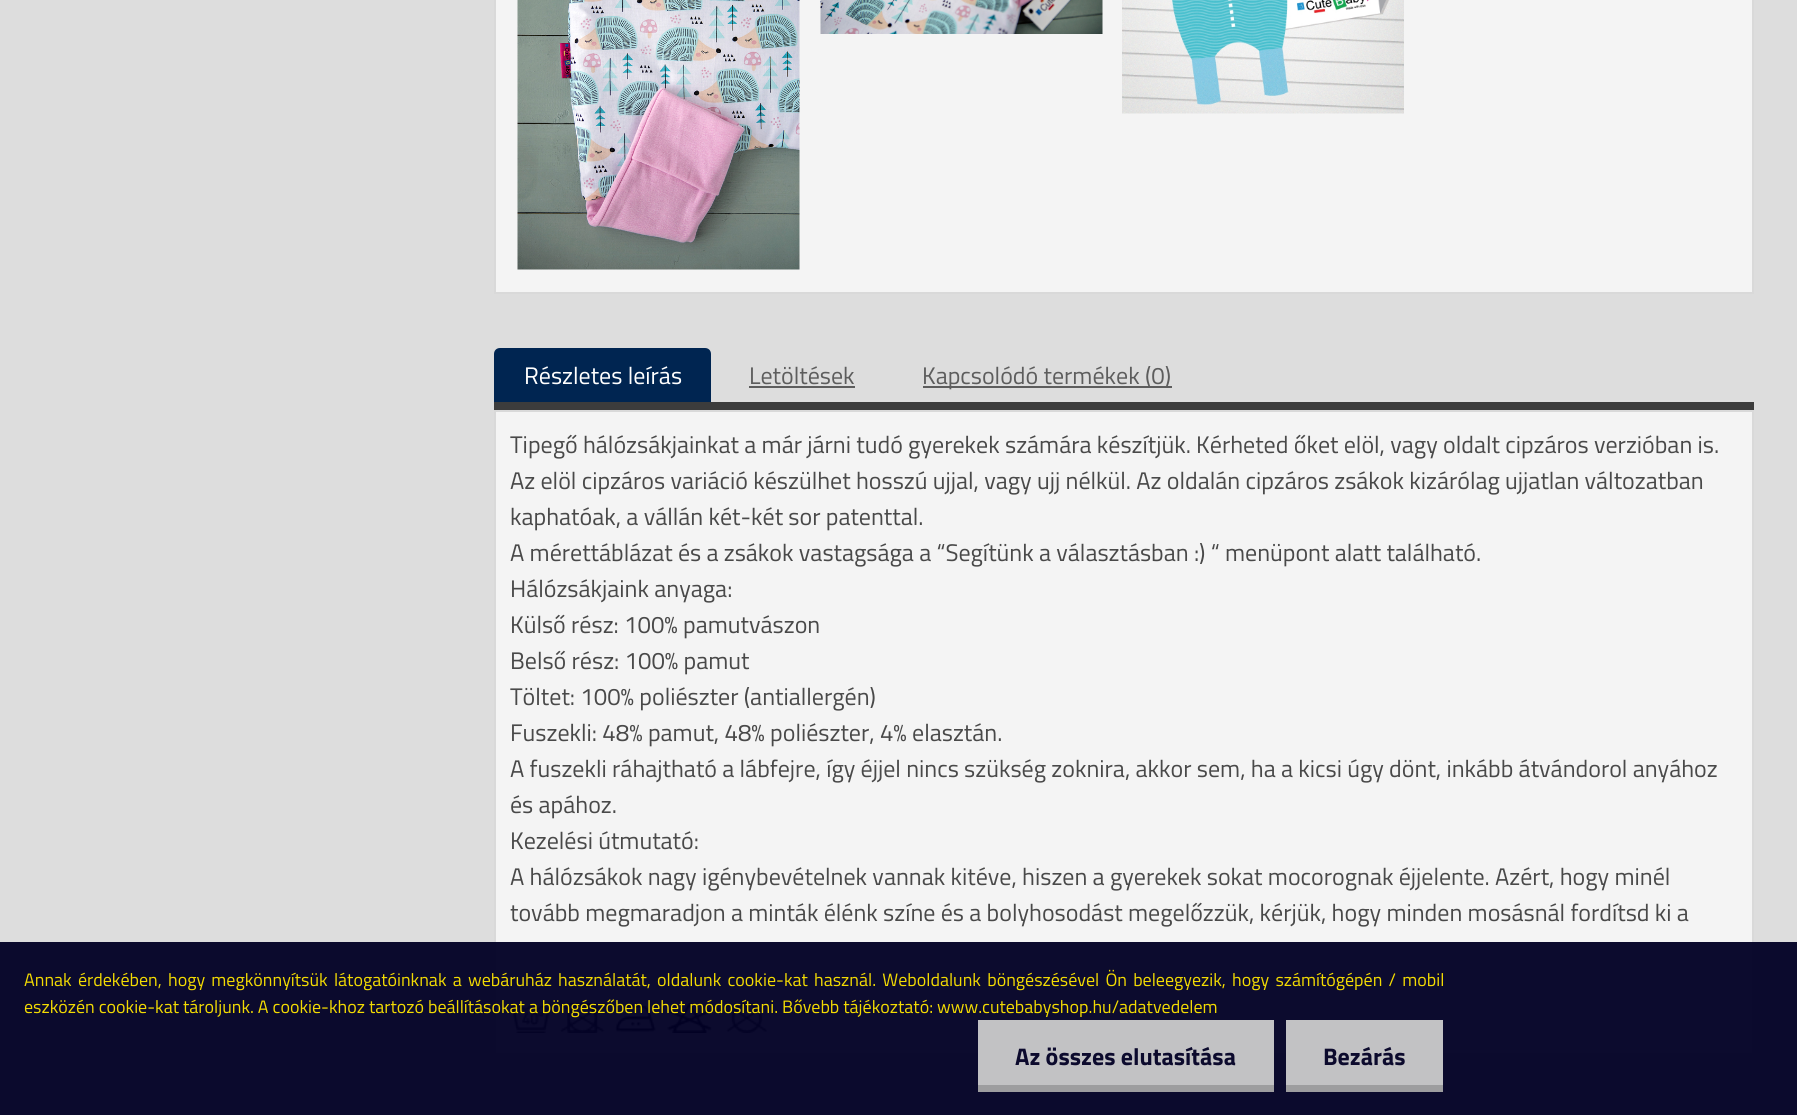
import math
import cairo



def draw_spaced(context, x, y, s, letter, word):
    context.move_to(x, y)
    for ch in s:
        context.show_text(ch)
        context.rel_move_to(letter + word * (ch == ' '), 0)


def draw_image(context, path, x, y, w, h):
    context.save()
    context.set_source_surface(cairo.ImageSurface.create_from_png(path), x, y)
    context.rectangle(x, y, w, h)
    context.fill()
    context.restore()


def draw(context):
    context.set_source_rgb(221 / 255, 221 / 255, 221 / 255)
    context.paint()
    context.set_source_rgb(244 / 255, 244 / 255, 244 / 255)
    context.rectangle(495, -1, 1258, 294)
    context.fill_preserve()
    context.set_source_rgb(217 / 255, 217 / 255, 217 / 255)
    context.stroke()
    draw_image(context, "images/1.png", 517, 0, 283, 270)
    draw_image(context, "images/2.png", 820, 0, 283, 34)
    draw_image(context, "images/3.png", 1122, 0, 282, 114)
    context.set_source_rgb(60 / 255, 60 / 255, 60 / 255)
    context.rectangle(494, 402, 1260, 8)
    context.fill()
    context.set_source_rgb(0, 37 / 255, 81 / 255)
    context.new_path()
    context.move_to(500, 348)
    context.line_to(705, 348)
    context.curve_to(708.5, 348, 711, 350.5, 711, 354)
    context.line_to(711, 402)
    context.line_to(494, 402)
    context.line_to(494, 354)
    context.curve_to(494, 350.5, 496.5, 348, 500, 348)
    context.close_path()
    context.fill()
    context.set_source_rgb(93 / 255, 93 / 255, 93 / 255)
    context.rectangle(749, 386, 106, 2)
    context.fill()
    context.rectangle(923, 386, 249, 2)
    context.fill()
    context.set_source_rgb(244 / 255, 244 / 255, 244 / 255)
    context.rectangle(495, 411, 1258, 643)
    context.fill_preserve()
    context.set_source_rgb(217 / 255, 217 / 255, 217 / 255)
    context.stroke()
    draw_image(context, "images/4.png", 511, 1002, 256, 31)
    context.set_source_rgba(2 / 255, 0, 37 / 255, 0.95)
    context.rectangle(0, 942, 1797, 173)
    context.fill()
    context.set_source_rgb(194 / 255, 194 / 255, 196 / 255)
    context.rectangle(978, 1020, 296, 65)
    context.fill()
    context.set_source_rgb(157 / 255, 157 / 255, 159 / 255)
    context.rectangle(978, 1085, 296, 7)
    context.fill()
    context.set_source_rgb(194 / 255, 194 / 255, 196 / 255)
    context.rectangle(1286, 1020, 157, 65)
    context.fill()
    context.set_source_rgb(157 / 255, 157 / 255, 159 / 255)
    context.rectangle(1286, 1085, 157, 7)
    context.fill()
    context.select_font_face("Titillium Web")
    context.set_font_size(24)
    context.set_source_rgb(1, 1, 1)
    context.move_to(524, 384)
    context.show_text("Részletes leírás")
    context.set_source_rgb(93 / 255, 93 / 255, 93 / 255)
    context.move_to(749, 384)
    context.show_text("Letöltések")
    context.move_to(922, 384)
    context.show_text("Kapcsolódó termékek (0)")
    context.set_source_rgb(73 / 255, 73 / 255, 73 / 255)
    context.move_to(510, 453)
    context.show_text("Tipegő hálózsákjainkat a már járni tudó gyerekek számára készítjük. Kérheted őket elöl, vagy oldalt cipzáros verzióban is.")
    context.move_to(510, 489)
    context.show_text("Az elöl cipzáros variáció készülhet hosszú ujjal, vagy ujj nélkül. Az oldalán cipzáros zsákok kizárólag ujjatlan változatban")
    context.move_to(510, 525)
    context.show_text("kaphatóak, a vállán két-két sor patenttal.")
    context.move_to(510, 561)
    context.show_text("A mérettáblázat és a zsákok vastagsága a “Segítünk a választásban :) “ menüpont alatt található.")
    context.move_to(510, 597)
    context.show_text("Hálózsákjaink anyaga:")
    context.move_to(510, 633)
    context.show_text("Külső rész: 100% pamutvászon")
    context.move_to(510, 669)
    context.show_text("Belső rész: 100% pamut")
    context.move_to(510, 705)
    context.show_text("Töltet: 100% poliészter (antiallergén)")
    context.move_to(510, 741)
    context.show_text("Fuszekli: 48% pamut, 48% poliészter, 4% elasztán.")
    context.move_to(510, 777)
    context.show_text("A fuszekli ráhajtható a lábfejre, így éjjel nincs szükség zoknira, akkor sem, ha a kicsi úgy dönt, inkább átvándorol anyához")
    context.move_to(510, 813)
    context.show_text("és apához.")
    context.move_to(510, 849)
    context.show_text("Kezelési útmutató:")
    context.move_to(510, 885)
    context.show_text("A hálózsákok nagy igénybevételnek vannak kitéve, hiszen a gyerekek sokat mocorognak éjjelente. Azért, hogy minél")
    context.move_to(510, 921)
    context.show_text("tovább megmaradjon a minták élénk színe és a bolyhosodást megelőzzük, kérjük, hogy minden mosásnál fordítsd ki a")
    context.set_font_size(18)
    context.set_source_rgb(243 / 255, 219 / 255, 2 / 255)
    draw_spaced(context, 24, 986, "Annak érdekében, hogy megkönnyítsük látogatóinknak a webáruház használatát, oldalunk cookie-kat használ. Weboldalunk böngészésével Ön beleegyezik, hogy számítógépén / mobil", 0, 2.25)
    context.move_to(24, 1013)
    context.show_text("eszközén cookie-kat tároljunk. A cookie-khoz tartozó beállításokat a böngészőben lehet módosítani. Bővebb tájékoztató: www.cutebabyshop.hu/adatvedelem")
    context.select_font_face("Titillium Web", cairo.FontSlant.NORMAL, cairo.FontWeight.BOLD)
    context.set_font_size(24)
    context.set_source_rgb(12 / 255, 10 / 255, 45 / 255)
    context.move_to(1015, 1065)
    context.show_text("Az összes elutasítása")
    context.move_to(1323, 1065)
    context.show_text("Bezárás")


surface = cairo.ImageSurface(cairo.Format.RGB24, 1797, 1115)
context = cairo.Context(surface)
options = cairo.FontOptions()
options.set_hint_metrics(cairo.HintMetrics.OFF)
options.set_hint_style(cairo.HintStyle.NONE)
context.set_font_options(options)
context.set_miter_limit(4)
draw(context)
surface.write_to_png("out.png")
